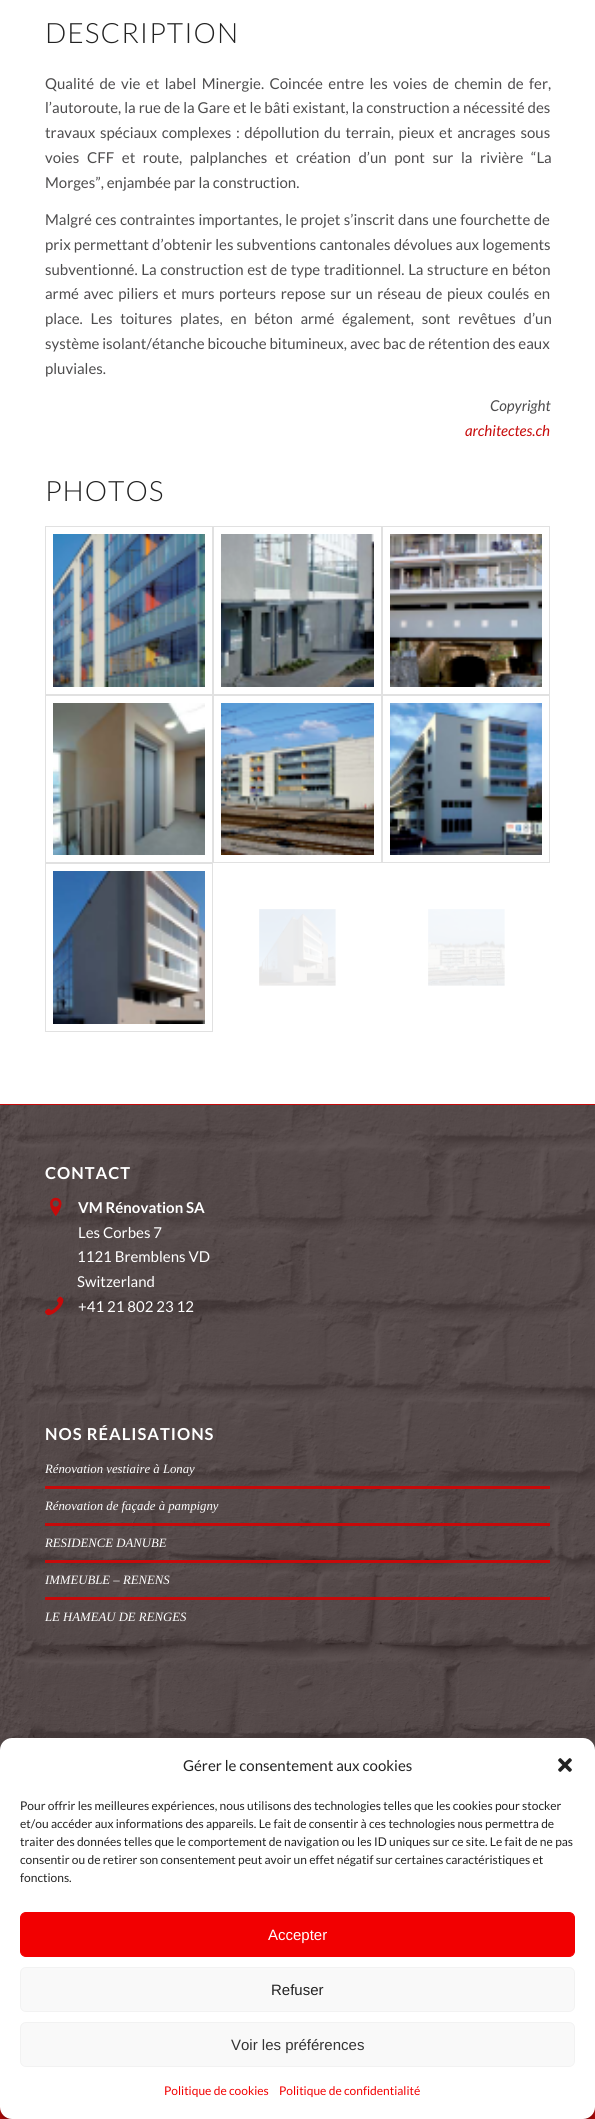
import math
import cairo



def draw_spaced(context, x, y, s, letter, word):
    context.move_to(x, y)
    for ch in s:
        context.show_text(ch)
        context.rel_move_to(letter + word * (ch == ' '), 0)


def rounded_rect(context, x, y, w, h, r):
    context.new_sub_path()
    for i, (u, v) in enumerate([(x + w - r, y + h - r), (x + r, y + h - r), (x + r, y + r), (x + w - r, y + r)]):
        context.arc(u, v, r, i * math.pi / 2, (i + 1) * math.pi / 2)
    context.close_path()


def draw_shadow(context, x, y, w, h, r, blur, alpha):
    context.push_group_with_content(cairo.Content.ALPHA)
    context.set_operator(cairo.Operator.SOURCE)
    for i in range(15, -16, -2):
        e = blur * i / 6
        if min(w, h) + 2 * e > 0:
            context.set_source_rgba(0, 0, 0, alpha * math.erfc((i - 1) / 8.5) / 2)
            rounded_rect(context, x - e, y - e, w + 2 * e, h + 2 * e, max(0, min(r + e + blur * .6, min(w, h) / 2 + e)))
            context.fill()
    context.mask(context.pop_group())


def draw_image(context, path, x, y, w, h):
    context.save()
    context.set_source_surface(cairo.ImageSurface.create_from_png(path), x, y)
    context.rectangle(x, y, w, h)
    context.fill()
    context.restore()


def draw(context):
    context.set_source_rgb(1, 1, 1)
    context.paint()
    context.rectangle(45.5, 526.5, 167, 168)
    context.set_source_rgb(225 / 255, 225 / 255, 225 / 255)
    context.set_line_width(1)
    context.stroke()
    draw_image(context, "images/1.png", 53, 534, 152, 153)
    context.rectangle(213.5, 526.5, 168, 168)
    context.stroke()
    draw_image(context, "images/2.png", 221, 534, 153, 153)
    context.rectangle(382.5, 526.5, 167, 168)
    context.stroke()
    draw_image(context, "images/3.png", 390, 534, 152, 153)
    context.rectangle(45.5, 695.5, 167, 167)
    context.stroke()
    draw_image(context, "images/4.png", 53, 703, 152, 152)
    context.rectangle(213.5, 695.5, 168, 167)
    context.stroke()
    draw_image(context, "images/5.png", 221, 703, 153, 152)
    context.rectangle(382.5, 695.5, 167, 167)
    context.stroke()
    draw_image(context, "images/6.png", 390, 703, 152, 152)
    context.rectangle(45.5, 863.5, 167, 168)
    context.stroke()
    draw_image(context, "images/7.png", 53, 871, 152, 153)
    draw_image(context, "images/8.png", 259, 909, 77, 77)
    draw_image(context, "images/9.png", 428, 909, 77, 77)
    context.set_source_rgb(56 / 255, 43 / 255, 43 / 255)
    context.rectangle(0, 1105, 595, 645)
    context.fill()
    draw_image(context, "images/10.png", 0, 1105, 595, 645)
    context.set_source_rgb(199 / 255, 10 / 255, 10 / 255)
    context.rectangle(0, 1104, 595, 1)
    context.fill()
    draw_image(context, "images/11.png", 50, 1197, 12, 19)
    draw_image(context, "images/12.png", 45, 1296, 19, 20)
    context.rectangle(45, 1486, 505, 3)
    context.fill()
    context.rectangle(45, 1523, 505, 3)
    context.fill()
    context.rectangle(45, 1560, 505, 3)
    context.fill()
    context.rectangle(45, 1597, 505, 3)
    context.fill()
    context.rectangle(0, 2107, 595, 12)
    context.fill()
    context.set_source_rgb(0, 0, 0)
    draw_shadow(context, 0, 1744, 595, 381, 12, 3, 0.23)
    draw_shadow(context, 0, 1748, 595, 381, 12, 10, 0.19)
    context.set_source_rgb(1, 1, 1)
    rounded_rect(context, 0, 1738, 595, 381, 12)
    context.fill()
    draw_image(context, "images/13.png", 558, 1758, 14, 14)
    context.set_source_rgb(242 / 255, 0, 1 / 255)
    rounded_rect(context, 20.5, 1912.5, 554, 44, 5.5)
    context.fill_preserve()
    context.stroke()
    context.set_source_rgb(249 / 255, 249 / 255, 249 / 255)
    rounded_rect(context, 20.5, 1967.5, 554, 44, 5.5)
    context.fill_preserve()
    context.set_source_rgb(242 / 255, 242 / 255, 242 / 255)
    context.stroke()
    context.set_source_rgb(249 / 255, 249 / 255, 249 / 255)
    rounded_rect(context, 20.5, 2022.5, 554, 44, 5.5)
    context.fill_preserve()
    context.set_source_rgb(242 / 255, 242 / 255, 242 / 255)
    context.stroke()
    context.select_font_face("Lato Light")
    context.set_font_size(28)
    context.set_source_rgb(34 / 255, 34 / 255, 34 / 255)
    draw_spaced(context, 45, 43, "DESCRIPTION", 1, 0)
    context.select_font_face("Lato")
    context.set_font_size(15)
    context.set_source_rgb(77 / 255, 76 / 255, 77 / 255)
    draw_spaced(context, 45, 89, "Qualité de vie et label Minergie. Coincée entre les voies de chemin de fer,", 0, 2.5)
    draw_spaced(context, 45, 113, "l’autoroute, la rue de la Gare et le bâti existant, la construction a nécessité des", 0, 0.1)
    draw_spaced(context, 45, 138, "travaux spéciaux complexes : dépollution du terrain, pieux et ancrages sous", 0, 1.75)
    draw_spaced(context, 45, 163, "voies CFF et route, palplanches et création d’un pont sur la rivière “La", 0, 4.75)
    context.move_to(45, 188)
    context.show_text("Morges”, enjambée par la construction.")
    draw_spaced(context, 45, 225, "Malgré ces contraintes importantes, le projet s’inscrit dans une fourchette de", 0, 0.5)
    draw_spaced(context, 45, 250, "prix permettant d’obtenir les subventions cantonales dévolues aux logements", 0, 0.25)
    draw_spaced(context, 45, 275, "subventionné. La construction est de type traditionnel. La structure en béton", 0, 0.75)
    draw_spaced(context, 45, 299, "armé avec piliers et murs porteurs repose sur un réseau de pieux coulés en", 0, 1.75)
    draw_spaced(context, 45, 324, "place. Les toitures plates, en béton armé également, sont revêtues d’un", 0, 4.75)
    context.move_to(45, 349)
    context.show_text("système isolant/étanche bicouche bitumineux, avec bac de rétention des eaux")
    context.move_to(45, 374)
    context.show_text("pluviales.")
    context.select_font_face("Lato", cairo.FontSlant.ITALIC)
    context.move_to(490, 411)
    context.show_text("Copyright")
    context.set_source_rgb(199 / 255, 10 / 255, 10 / 255)
    context.move_to(465, 436)
    context.show_text("architectes.ch")
    context.select_font_face("Lato Light")
    context.set_font_size(28)
    context.set_source_rgb(34 / 255, 34 / 255, 34 / 255)
    draw_spaced(context, 45, 501, "PHOTOS", 1, 0)
    context.select_font_face("Lato", cairo.FontSlant.NORMAL, cairo.FontWeight.BOLD)
    context.set_font_size(16.5)
    context.set_source_rgb(1, 1, 1)
    draw_spaced(context, 45, 1179, "CONTACT", 1, 0)
    context.set_font_size(15)
    context.move_to(78, 1213)
    context.show_text("VM Rénovation SA")
    context.select_font_face("Lato")
    context.move_to(78, 1238)
    context.show_text("Les Corbes 7")
    context.move_to(77, 1262)
    context.show_text("1121 Bremblens VD")
    context.move_to(77, 1287)
    context.show_text("Switzerland")
    context.move_to(78, 1312)
    context.show_text("+41 21 802 23 12")
    context.select_font_face("Lato", cairo.FontSlant.NORMAL, cairo.FontWeight.BOLD)
    context.set_font_size(16.5)
    draw_spaced(context, 45, 1440, "NOS RÉALISATIONS", 1, 0)
    context.select_font_face("Liberation Serif", cairo.FontSlant.ITALIC)
    context.set_font_size(12.75)
    context.move_to(45, 1473)
    context.show_text("Rénovation vestiaire à Lonay")
    context.move_to(45, 1510)
    context.show_text("Rénovation de façade à pampigny")
    context.move_to(45, 1547)
    context.show_text("RESIDENCE DANUBE")
    context.move_to(45, 1584)
    context.show_text("IMMEUBLE – RENENS")
    context.move_to(45, 1621)
    context.show_text("LE HAMEAU DE RENGES")
    context.select_font_face("Lato")
    context.set_font_size(15)
    context.set_source_rgb(34 / 255, 34 / 255, 34 / 255)
    context.move_to(183, 1771)
    context.show_text("Gérer le consentement aux cookies")
    context.set_font_size(12)
    context.move_to(20, 1810)
    context.show_text("Pour offrir les meilleures expériences, nous utilisons des technologies telles que les cookies pour stocker")
    context.move_to(20, 1828)
    context.show_text("et/ou accéder aux informations des appareils. Le fait de consentir à ces technologies nous permettra de")
    context.move_to(20, 1846)
    context.show_text("traiter des données telles que le comportement de navigation ou les ID uniques sur ce site. Le fait de ne pas")
    context.move_to(20, 1864)
    context.show_text("consentir ou de retirer son consentement peut avoir un effet négatif sur certaines caractéristiques et")
    context.move_to(20, 1882)
    context.show_text("fonctions.")
    context.select_font_face("Liberation Sans")
    context.set_font_size(15)
    context.set_source_rgb(1, 1, 1)
    context.move_to(268, 1940)
    context.show_text("Accepter")
    context.set_source_rgb(34 / 255, 34 / 255, 34 / 255)
    context.move_to(271, 1995)
    context.show_text("Refuser")
    context.set_source_rgb(51 / 255, 51 / 255, 51 / 255)
    context.move_to(231, 2050)
    context.show_text("Voir les préférences")
    context.select_font_face("Lato")
    context.set_font_size(12)
    context.set_source_rgb(242 / 255, 0, 1 / 255)
    context.move_to(164, 2095)
    context.show_text("Politique de cookies")
    context.move_to(279, 2095)
    context.show_text("Politique de confidentialité")


surface = cairo.ImageSurface(cairo.Format.RGB24, 595, 2119)
context = cairo.Context(surface)
options = cairo.FontOptions()
options.set_hint_metrics(cairo.HintMetrics.OFF)
options.set_hint_style(cairo.HintStyle.NONE)
context.set_font_options(options)
context.set_miter_limit(4)
draw(context)
surface.write_to_png("out.png")
